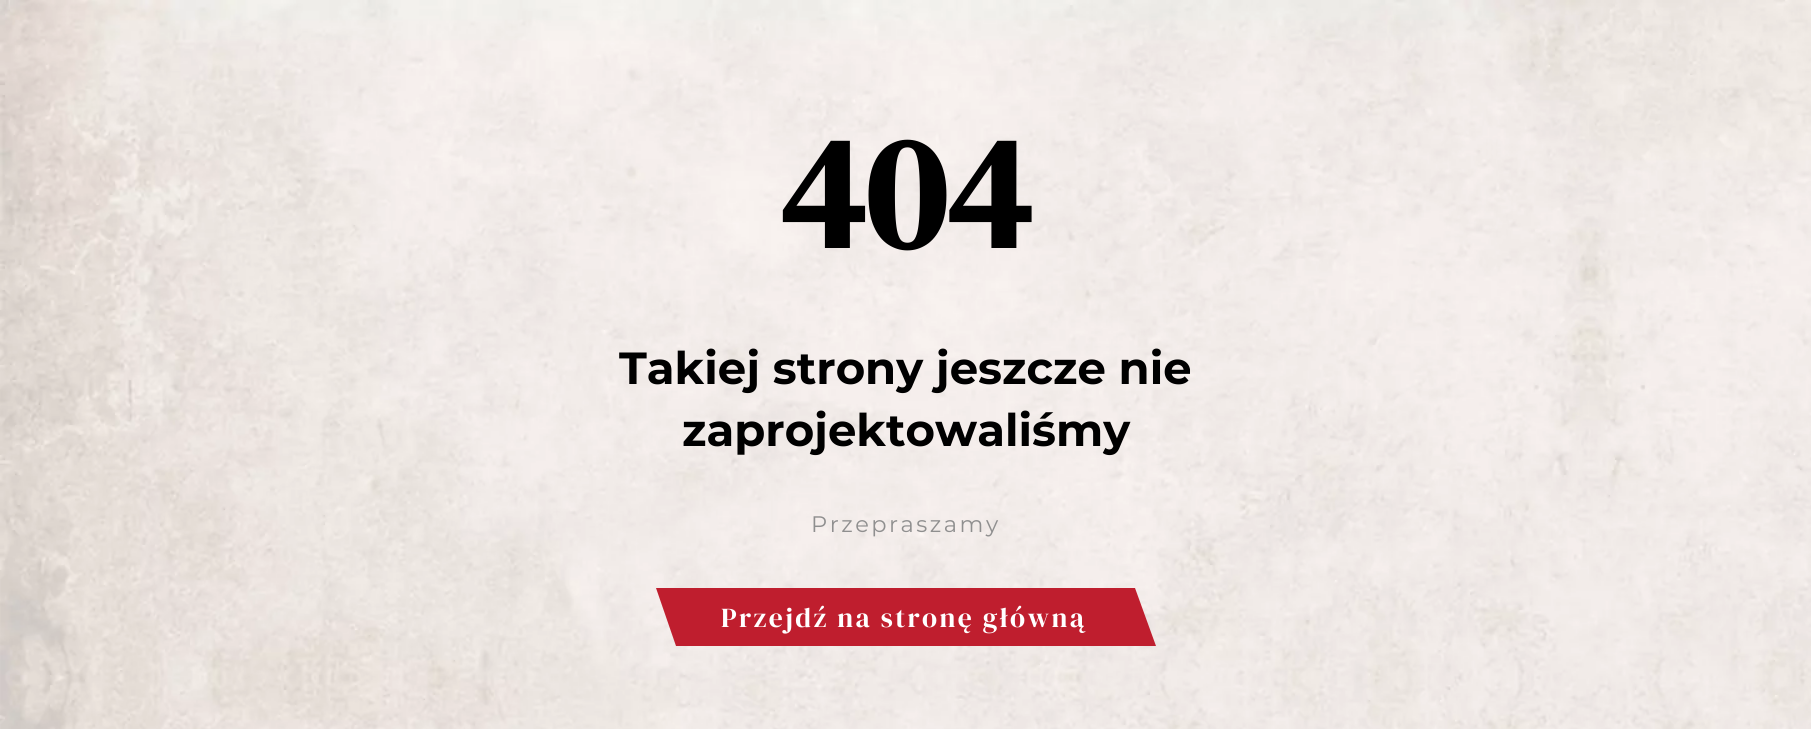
import math
import cairo



def draw_spaced(context, x, y, s, letter, word):
    context.move_to(x, y)
    for ch in s:
        context.show_text(ch)
        context.rel_move_to(letter + word * (ch == ' '), 0)


def draw_image(context, path, x, y, w, h):
    context.save()
    context.set_source_surface(cairo.ImageSurface.create_from_png(path), x, y)
    context.rectangle(x, y, w, h)
    context.fill()
    context.restore()


def draw(context):
    context.set_source_rgb(1, 1, 1)
    context.paint()
    draw_image(context, "images/1.png", 0, 0, 1811, 729)
    context.set_source_rgb(191 / 255, 30 / 255, 46 / 255)
    context.new_path()
    context.move_to(656, 588)
    context.line_to(1135, 588)
    context.line_to(1156, 646)
    context.line_to(676, 646)
    context.close_path()
    context.fill()
    context.select_font_face("DM Serif Display", cairo.FontSlant.NORMAL, cairo.FontWeight.BOLD)
    context.set_font_size(160)
    context.set_source_rgb(0, 0, 0)
    context.move_to(779, 248)
    context.show_text("404")
    context.select_font_face("Montserrat", cairo.FontSlant.NORMAL, cairo.FontWeight.BOLD)
    context.set_font_size(45)
    context.move_to(619, 384)
    context.show_text("Takiej strony jeszcze nie")
    context.move_to(682, 446)
    context.show_text("zaprojektowaliśmy")
    context.select_font_face("Montserrat")
    context.set_font_size(22.5)
    context.set_source_rgb(143 / 255, 143 / 255, 143 / 255)
    draw_spaced(context, 811, 532, "Przepraszamy", 2.5, 0)
    context.select_font_face("DM Serif Display")
    context.set_font_size(27.6)
    context.set_source_rgb(1, 1, 1)
    draw_spaced(context, 721, 627, "Przejdź na stronę główną", 2.4, 0)


surface = cairo.ImageSurface(cairo.Format.RGB24, 1811, 729)
context = cairo.Context(surface)
options = cairo.FontOptions()
options.set_hint_metrics(cairo.HintMetrics.OFF)
options.set_hint_style(cairo.HintStyle.NONE)
context.set_font_options(options)
context.set_miter_limit(4)
draw(context)
surface.write_to_png("out.png")
